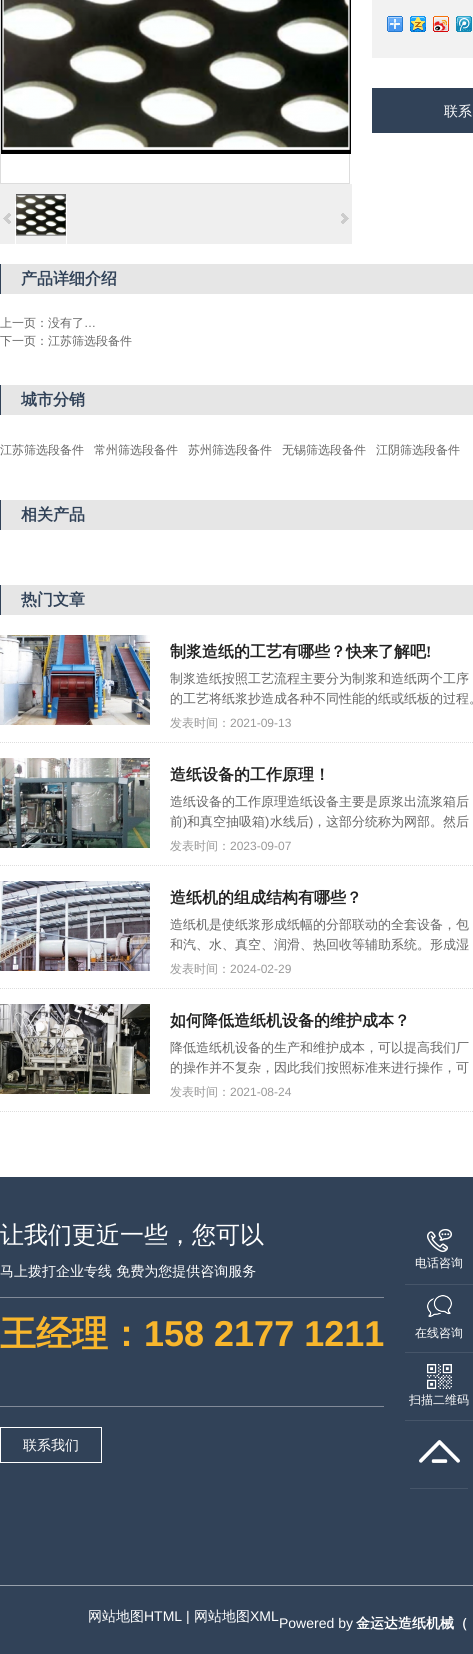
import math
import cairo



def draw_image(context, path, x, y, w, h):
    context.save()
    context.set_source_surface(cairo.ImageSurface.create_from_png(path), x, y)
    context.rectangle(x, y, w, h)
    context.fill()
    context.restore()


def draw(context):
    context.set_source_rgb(1, 1, 1)
    context.paint()
    context.rectangle(0.5, -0.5, 349, 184)
    context.set_source_rgb(221 / 255, 221 / 255, 221 / 255)
    context.set_line_width(1)
    context.stroke()
    draw_image(context, "images/1.png", 1, 0, 350, 154)
    context.set_source_rgb(239 / 255, 239 / 255, 239 / 255)
    context.rectangle(0, 184, 352, 60)
    context.fill()
    draw_image(context, "images/2.png", 3, 213, 8, 11)
    context.save()
    context.rectangle(14, 190, 53, 54)
    context.clip()
    context.rectangle(15.5, 201.5, 51, 48)
    context.set_source_rgb(1, 1, 1)
    context.stroke()
    context.restore()
    draw_image(context, "images/3.png", 16, 194, 50, 42)
    draw_image(context, "images/4.png", 341, 213, 8, 11)
    context.set_source_rgb(242 / 255, 242 / 255, 242 / 255)
    context.rectangle(372, 0, 101, 58)
    context.fill()
    draw_image(context, "images/5.png", 387, 16, 16, 16)
    draw_image(context, "images/6.png", 410, 16, 16, 16)
    draw_image(context, "images/7.png", 433, 16, 16, 16)
    draw_image(context, "images/8.png", 456, 16, 16, 16)
    context.set_source_rgb(49 / 255, 66 / 255, 88 / 255)
    context.rectangle(372, 88, 101, 45)
    context.fill()
    context.set_source_rgb(230 / 255, 230 / 255, 230 / 255)
    context.rectangle(1, 264, 472, 30)
    context.fill()
    context.set_source_rgb(49 / 255, 66 / 255, 88 / 255)
    context.rectangle(0, 264, 1, 30)
    context.fill()
    context.set_source_rgb(230 / 255, 230 / 255, 230 / 255)
    context.rectangle(1, 385, 472, 30)
    context.fill()
    context.set_source_rgb(49 / 255, 66 / 255, 88 / 255)
    context.rectangle(0, 385, 1, 30)
    context.fill()
    context.set_source_rgb(230 / 255, 230 / 255, 230 / 255)
    context.rectangle(1, 500, 472, 30)
    context.fill()
    context.set_source_rgb(49 / 255, 66 / 255, 88 / 255)
    context.rectangle(0, 500, 1, 30)
    context.fill()
    context.set_source_rgb(230 / 255, 230 / 255, 230 / 255)
    context.rectangle(1, 585, 472, 30)
    context.fill()
    context.set_source_rgb(49 / 255, 66 / 255, 88 / 255)
    context.rectangle(0, 585, 1, 30)
    context.fill()
    context.new_path()
    context.move_to(0, 742.5)
    context.line_to(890, 742.5)
    context.set_source_rgb(221 / 255, 221 / 255, 221 / 255)
    context.set_dash([1, 1])
    context.stroke()
    draw_image(context, "images/9.png", 0, 635, 150, 90)
    context.new_path()
    context.move_to(0, 865.5)
    context.line_to(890, 865.5)
    context.stroke()
    draw_image(context, "images/10.png", 0, 758, 150, 90)
    context.new_path()
    context.move_to(0, 988.5)
    context.line_to(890, 988.5)
    context.stroke()
    draw_image(context, "images/11.png", 0, 881, 150, 90)
    context.new_path()
    context.move_to(0, 1111.5)
    context.line_to(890, 1111.5)
    context.stroke()
    draw_image(context, "images/12.png", 0, 1004, 150, 90)
    context.set_source_rgb(49 / 255, 66 / 255, 88 / 255)
    context.rectangle(0, 1177, 473, 477)
    context.fill()
    context.set_source_rgb(130 / 255, 138 / 255, 152 / 255)
    context.rectangle(0, 1297, 384, 1)
    context.fill()
    context.rectangle(0, 1406, 384, 1)
    context.fill()
    context.rectangle(0.5, 1427.5, 101, 35)
    context.set_source_rgb(1, 1, 1)
    context.set_dash([])
    context.stroke()
    context.set_source_rgb(152 / 255, 161 / 255, 172 / 255)
    context.rectangle(0, 1585, 473, 1)
    context.fill()
    context.set_source_rgb(70 / 255, 85 / 255, 105 / 255)
    context.rectangle(405, 1284, 68, 1)
    context.fill()
    draw_image(context, "images/13.png", 427, 1229, 25, 23)
    context.rectangle(405, 1352, 68, 1)
    context.fill()
    draw_image(context, "images/14.png", 427, 1295, 25, 22)
    context.rectangle(405, 1420, 68, 1)
    context.fill()
    draw_image(context, "images/15.png", 427, 1364, 25, 25)
    context.rectangle(410, 1488, 58, 1)
    context.fill()
    draw_image(context, "images/16.png", 419, 1440, 41, 23)
    context.select_font_face("WenQuanYi Zen Hei Medium")
    context.set_font_size(14)
    context.set_source_rgb(1, 1, 1)
    context.move_to(444, 116)
    context.show_text("联系")
    context.select_font_face("WenQuanYi Zen Hei", cairo.FontSlant.NORMAL, cairo.FontWeight.BOLD)
    context.set_font_size(16)
    context.set_source_rgb(49 / 255, 66 / 255, 88 / 255)
    context.move_to(21, 284)
    context.show_text("产品详细介绍")
    context.select_font_face("WenQuanYi Zen Hei Medium")
    context.set_font_size(12)
    context.set_source_rgb(102 / 255, 102 / 255, 102 / 255)
    context.move_to(0, 327)
    context.show_text("上一页：没有了")
    context.select_font_face("Liberation Sans")
    context.move_to(84, 327)
    context.show_text("…")
    context.select_font_face("WenQuanYi Zen Hei Medium")
    context.move_to(0, 345)
    context.show_text("下一页：江苏筛选段备件")
    context.select_font_face("WenQuanYi Zen Hei", cairo.FontSlant.NORMAL, cairo.FontWeight.BOLD)
    context.set_font_size(16)
    context.set_source_rgb(49 / 255, 66 / 255, 88 / 255)
    context.move_to(21, 405)
    context.show_text("城市分销")
    context.select_font_face("WenQuanYi Zen Hei Medium")
    context.set_font_size(12)
    context.set_source_rgb(102 / 255, 102 / 255, 102 / 255)
    context.move_to(0, 454)
    context.show_text("江苏筛选段备件")
    context.move_to(94, 454)
    context.show_text("常州筛选段备件")
    context.move_to(188, 454)
    context.show_text("苏州筛选段备件")
    context.move_to(282, 454)
    context.show_text("无锡筛选段备件")
    context.move_to(376, 454)
    context.show_text("江阴筛选段备件")
    context.select_font_face("WenQuanYi Zen Hei", cairo.FontSlant.NORMAL, cairo.FontWeight.BOLD)
    context.set_font_size(16)
    context.set_source_rgb(49 / 255, 66 / 255, 88 / 255)
    context.move_to(21, 520)
    context.show_text("相关产品")
    context.move_to(21, 605)
    context.show_text("热门文章")
    context.set_source_rgb(34 / 255, 34 / 255, 34 / 255)
    context.move_to(170, 657)
    context.show_text("制浆造纸的工艺有哪些？快来了解吧")
    context.select_font_face("Liberation Serif", cairo.FontSlant.NORMAL, cairo.FontWeight.BOLD)
    context.move_to(426, 657)
    context.show_text("!")
    context.select_font_face("WenQuanYi Zen Hei Medium")
    context.set_font_size(13)
    context.set_source_rgb(102 / 255, 102 / 255, 102 / 255)
    context.move_to(170, 683)
    context.show_text("制浆造纸按照工艺流程主要分为制浆和造纸两个工序")
    context.move_to(170, 703)
    context.show_text("的工艺将纸浆抄造成各种不同性能的纸或纸板的过程。")
    context.set_font_size(12)
    context.set_source_rgb(153 / 255, 153 / 255, 153 / 255)
    context.move_to(170, 727)
    context.show_text("发表时间：")
    context.select_font_face("Liberation Sans")
    context.move_to(230, 727)
    context.show_text("2021-09-13")
    context.select_font_face("WenQuanYi Zen Hei", cairo.FontSlant.NORMAL, cairo.FontWeight.BOLD)
    context.set_font_size(16)
    context.set_source_rgb(34 / 255, 34 / 255, 34 / 255)
    context.move_to(170, 780)
    context.show_text("造纸设备的工作原理！")
    context.select_font_face("WenQuanYi Zen Hei Medium")
    context.set_font_size(13)
    context.set_source_rgb(102 / 255, 102 / 255, 102 / 255)
    context.move_to(170, 806)
    context.show_text("造纸设备的工作原理造纸设备主要是原浆出流浆箱后")
    context.move_to(170, 826)
    context.show_text("前")
    context.select_font_face("Liberation Sans")
    context.move_to(183, 826)
    context.show_text(")")
    context.select_font_face("WenQuanYi Zen Hei Medium")
    context.move_to(187, 826)
    context.show_text("和真空抽吸箱")
    context.select_font_face("Liberation Sans")
    context.move_to(265, 826)
    context.show_text(")")
    context.select_font_face("WenQuanYi Zen Hei Medium")
    context.move_to(270, 826)
    context.show_text("水线后")
    context.select_font_face("Liberation Sans")
    context.move_to(309, 826)
    context.show_text(")")
    context.select_font_face("WenQuanYi Zen Hei Medium")
    context.move_to(313, 826)
    context.show_text("，这部分统称为网部。然后")
    context.set_font_size(12)
    context.set_source_rgb(153 / 255, 153 / 255, 153 / 255)
    context.move_to(170, 850)
    context.show_text("发表时间：")
    context.select_font_face("Liberation Sans")
    context.move_to(230, 850)
    context.show_text("2023-09-07")
    context.select_font_face("WenQuanYi Zen Hei", cairo.FontSlant.NORMAL, cairo.FontWeight.BOLD)
    context.set_font_size(16)
    context.set_source_rgb(34 / 255, 34 / 255, 34 / 255)
    context.move_to(170, 903)
    context.show_text("造纸机的组成结构有哪些？")
    context.select_font_face("WenQuanYi Zen Hei Medium")
    context.set_font_size(13)
    context.set_source_rgb(102 / 255, 102 / 255, 102 / 255)
    context.move_to(170, 929)
    context.show_text("造纸机是使纸浆形成纸幅的分部联动的全套设备，包")
    context.move_to(170, 949)
    context.show_text("和汽、水、真空、润滑、热回收等辅助系统。形成湿")
    context.set_font_size(12)
    context.set_source_rgb(153 / 255, 153 / 255, 153 / 255)
    context.move_to(170, 973)
    context.show_text("发表时间：")
    context.select_font_face("Liberation Sans")
    context.move_to(230, 973)
    context.show_text("2024-02-29")
    context.select_font_face("WenQuanYi Zen Hei", cairo.FontSlant.NORMAL, cairo.FontWeight.BOLD)
    context.set_font_size(16)
    context.set_source_rgb(34 / 255, 34 / 255, 34 / 255)
    context.move_to(170, 1026)
    context.show_text("如何降低造纸机设备的维护成本？")
    context.select_font_face("WenQuanYi Zen Hei Medium")
    context.set_font_size(13)
    context.set_source_rgb(102 / 255, 102 / 255, 102 / 255)
    context.move_to(170, 1052)
    context.show_text("降低造纸机设备的生产和维护成本，可以提高我们厂")
    context.move_to(170, 1072)
    context.show_text("的操作并不复杂，因此我们按照标准来进行操作，可")
    context.set_font_size(12)
    context.set_source_rgb(153 / 255, 153 / 255, 153 / 255)
    context.move_to(170, 1096)
    context.show_text("发表时间：")
    context.select_font_face("Liberation Sans")
    context.move_to(230, 1096)
    context.show_text("2021-08-24")
    context.select_font_face("WenQuanYi Zen Hei Medium")
    context.set_font_size(24)
    context.set_source_rgb(1, 1, 1)
    context.move_to(0, 1243)
    context.show_text("让我们更近一些，您可以")
    context.set_font_size(14)
    context.move_to(0, 1276)
    context.show_text("马上拨打企业专线 免费为您提供咨询服务")
    context.select_font_face("WenQuanYi Zen Hei", cairo.FontSlant.NORMAL, cairo.FontWeight.BOLD)
    context.set_font_size(36)
    context.set_source_rgb(248 / 255, 182 / 255, 44 / 255)
    context.move_to(0, 1346)
    context.show_text("王经理：")
    context.select_font_face("Liberation Sans", cairo.FontSlant.NORMAL, cairo.FontWeight.BOLD)
    context.move_to(144, 1346)
    context.show_text("158 2177 1211")
    context.select_font_face("WenQuanYi Zen Hei Medium")
    context.set_font_size(14)
    context.set_source_rgb(1, 1, 1)
    context.move_to(23, 1450)
    context.show_text("联系我们")
    context.move_to(88, 1621)
    context.show_text("网站地图")
    context.select_font_face("Liberation Sans")
    context.move_to(144, 1621)
    context.show_text("HTML |")
    context.select_font_face("WenQuanYi Zen Hei Medium")
    context.move_to(194, 1621)
    context.show_text("网站地图")
    context.select_font_face("Liberation Sans")
    context.move_to(250, 1621)
    context.show_text("XML")
    context.move_to(279, 1628)
    context.show_text("Powered by")
    context.select_font_face("WenQuanYi Zen Hei", cairo.FontSlant.NORMAL, cairo.FontWeight.BOLD)
    context.move_to(356, 1628)
    context.show_text("金运达造纸机械（")
    context.select_font_face("WenQuanYi Zen Hei Medium")
    context.set_font_size(12)
    context.move_to(415, 1267)
    context.show_text("电话咨询")
    context.move_to(415, 1337)
    context.show_text("在线咨询")
    context.move_to(409, 1404)
    context.show_text("扫描二维码")


surface = cairo.ImageSurface(cairo.Format.RGB24, 473, 1654)
context = cairo.Context(surface)
options = cairo.FontOptions()
options.set_hint_metrics(cairo.HintMetrics.OFF)
options.set_hint_style(cairo.HintStyle.NONE)
context.set_font_options(options)
context.set_miter_limit(4)
draw(context)
surface.write_to_png("out.png")
